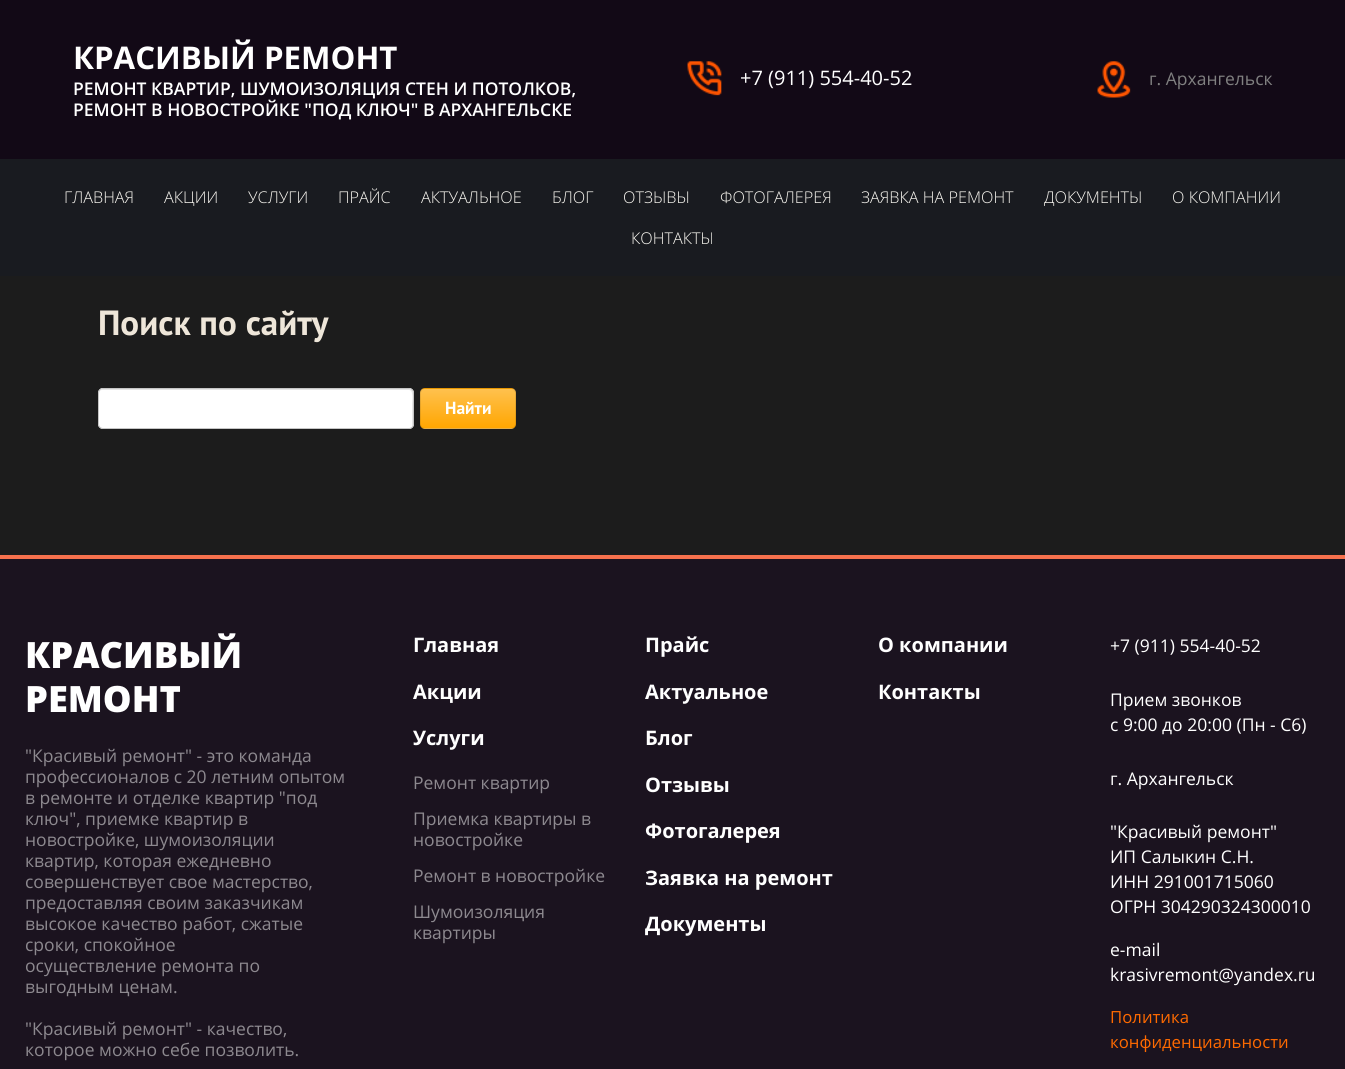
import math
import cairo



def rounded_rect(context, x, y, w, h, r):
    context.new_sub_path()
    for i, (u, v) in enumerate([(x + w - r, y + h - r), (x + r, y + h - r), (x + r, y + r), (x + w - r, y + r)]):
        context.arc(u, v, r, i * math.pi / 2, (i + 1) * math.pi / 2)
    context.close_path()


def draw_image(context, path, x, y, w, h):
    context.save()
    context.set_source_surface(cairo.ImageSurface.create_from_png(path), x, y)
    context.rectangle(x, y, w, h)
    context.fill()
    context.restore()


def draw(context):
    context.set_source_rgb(28 / 255, 28 / 255, 28 / 255)
    context.paint()
    context.set_source_rgb(18 / 255, 9 / 255, 22 / 255)
    context.rectangle(0, 0, 1345, 159)
    context.fill()
    draw_image(context, "images/1.png", 687, 61, 35, 35)
    draw_image(context, "images/2.png", 1097, 61, 34, 37)
    context.set_source_rgb(25 / 255, 27 / 255, 32 / 255)
    context.rectangle(0, 159, 1345, 117)
    context.fill()
    context.set_source_rgb(1, 1, 1)
    rounded_rect(context, 98, 388, 316, 41, 5)
    context.fill()
    context.set_source_rgb(230 / 255, 230 / 255, 230 / 255)
    context.new_path()
    context.move_to(102, 390)
    context.line_to(409, 390)
    context.curve_to(414, 390, 412, 402, 412, 404)
    context.line_to(412, 427)
    context.curve_to(412, 426, 413, 425, 413, 424)
    context.line_to(413, 393)
    context.curve_to(413, 391, 411, 389, 409, 389)
    context.line_to(103, 389)
    context.curve_to(101, 389, 99, 391, 99, 393)
    context.line_to(99, 394)
    context.curve_to(99, 392, 100, 390, 102, 390)
    context.close_path()
    context.fill()
    rounded_rect(context, 98.5, 388.5, 315, 40, 4.5)
    context.set_source_rgb(197 / 255, 197 / 255, 197 / 255)
    context.set_line_width(1)
    context.stroke()
    context.save()
    rounded_rect(context, 420, 388, 96, 41, 5)
    context.clip()
    gradient = cairo.LinearGradient(468, 350, 468, 389)
    gradient.add_color_stop_rgba(0, 1, 193 / 255, 78 / 255, 1)
    gradient.add_color_stop_rgba(1, 1, 166 / 255, 1 / 255, 1)
    context.set_source(gradient)
    context.rectangle(420, 388, 96, 1)
    context.fill()
    gradient = cairo.LinearGradient(468, 389, 468, 428)
    gradient.add_color_stop_rgba(0, 1, 193 / 255, 78 / 255, 1)
    gradient.add_color_stop_rgba(1, 1, 166 / 255, 1 / 255, 1)
    context.set_source(gradient)
    context.rectangle(420, 389, 96, 39)
    context.fill()
    gradient = cairo.LinearGradient(468, 428, 468, 466)
    gradient.add_color_stop_rgba(0, 1, 193 / 255, 78 / 255, 1)
    gradient.add_color_stop_rgba(1, 1, 166 / 255, 1 / 255, 1)
    context.set_source(gradient)
    context.rectangle(420, 428, 96, 1)
    context.fill()
    context.restore()
    rounded_rect(context, 420.5, 388.5, 95, 40, 4.5)
    context.set_source_rgba(0, 0, 0, 0.1)
    context.stroke()
    context.set_source_rgb(27 / 255, 19 / 255, 31 / 255)
    context.rectangle(0, 559, 1345, 510)
    context.fill()
    context.set_source_rgb(247 / 255, 113 / 255, 77 / 255)
    context.rectangle(0, 555, 1345, 4)
    context.fill()
    context.select_font_face("Open Sans", cairo.FontSlant.NORMAL, cairo.FontWeight.BOLD)
    context.set_font_size(31.25)
    context.set_source_rgb(1, 1, 1)
    context.move_to(73, 69)
    context.show_text("КРАСИВЫЙ РЕМОНТ")
    context.select_font_face("Open Sans SemiBold")
    context.set_font_size(17.5)
    context.move_to(73, 95)
    context.show_text("РЕМОНТ КВАРТИР, ШУМОИЗОЛЯЦИЯ СТЕН И ПОТОЛКОВ,")
    context.move_to(73, 116)
    context.show_text("РЕМОНТ В НОВОСТРОЙКЕ \"ПОД КЛЮЧ\" В АРХАНГЕЛЬСКЕ")
    context.select_font_face("Open Sans")
    context.set_font_size(20)
    context.move_to(740, 85)
    context.show_text("+7 (911) 554-40-52")
    context.set_font_size(17.5)
    context.set_source_rgb(128 / 255, 128 / 255, 128 / 255)
    context.move_to(1149, 85)
    context.show_text("г. Архангельск")
    context.select_font_face("Open Sans Light")
    context.set_font_size(16.25)
    context.set_source_rgb(247 / 255, 245 / 255, 239 / 255)
    context.move_to(64, 203)
    context.show_text("ГЛАВНАЯ")
    context.move_to(164, 203)
    context.show_text("АКЦИИ")
    context.move_to(248, 203)
    context.show_text("УСЛУГИ")
    context.move_to(338, 203)
    context.show_text("ПРАЙС")
    context.move_to(421, 203)
    context.show_text("АКТУАЛЬНОЕ")
    context.move_to(552, 203)
    context.show_text("БЛОГ")
    context.move_to(623, 203)
    context.show_text("ОТЗЫВЫ")
    context.move_to(720, 203)
    context.show_text("ФОТОГАЛЕРЕЯ")
    context.move_to(861, 203)
    context.show_text("ЗАЯВКА НА РЕМОНТ")
    context.move_to(1044, 203)
    context.show_text("ДОКУМЕНТЫ")
    context.move_to(1172, 203)
    context.show_text("О КОМПАНИИ")
    context.move_to(631, 244)
    context.show_text("КОНТАКТЫ")
    context.select_font_face("PT Sans", cairo.FontSlant.NORMAL, cairo.FontWeight.BOLD)
    context.set_font_size(35)
    context.set_source_rgb(238 / 255, 230 / 255, 217 / 255)
    context.move_to(98, 335)
    context.show_text("Поиск по сайту")
    context.set_font_size(17.5)
    context.set_source_rgb(1, 1, 1)
    context.move_to(445, 414)
    context.show_text("Найти")
    context.select_font_face("Open Sans ExtraBold")
    context.set_font_size(36.25)
    context.move_to(25, 668)
    context.show_text("КРАСИВЫЙ")
    context.move_to(25, 712)
    context.show_text("РЕМОНТ")
    context.select_font_face("Open Sans")
    context.set_font_size(17.5)
    context.set_source_rgb(141 / 255, 137 / 255, 143 / 255)
    context.move_to(25, 762)
    context.show_text("\"Красивый ремонт\" - это команда")
    context.move_to(25, 783)
    context.show_text("профессионалов с 20 летним опытом")
    context.move_to(25, 804)
    context.show_text("в ремонте и отделке квартир \"под")
    context.move_to(25, 825)
    context.show_text("ключ\", приемке квартир в")
    context.move_to(25, 846)
    context.show_text("новостройке, шумоизоляции")
    context.move_to(25, 867)
    context.show_text("квартир, которая ежедневно")
    context.move_to(25, 888)
    context.show_text("совершенствует свое мастерство,")
    context.move_to(25, 909)
    context.show_text("предоставляя своим заказчикам")
    context.move_to(25, 930)
    context.show_text("высокое качество работ, сжатые")
    context.move_to(25, 951)
    context.show_text("сроки, спокойное")
    context.move_to(25, 972)
    context.show_text("осуществление ремонта по")
    context.move_to(25, 993)
    context.show_text("выгодным ценам.")
    context.move_to(25, 1035)
    context.show_text("\"Красивый ремонт\" - качество,")
    context.move_to(25, 1056)
    context.show_text("которое можно себе позволить.")
    context.select_font_face("Open Sans", cairo.FontSlant.NORMAL, cairo.FontWeight.BOLD)
    context.set_font_size(20)
    context.set_source_rgb(1, 1, 1)
    context.move_to(413, 652)
    context.show_text("Главная")
    context.move_to(645, 652)
    context.show_text("Прайс")
    context.move_to(878, 652)
    context.show_text("О компании")
    context.move_to(413, 699)
    context.show_text("Акции")
    context.move_to(645, 699)
    context.show_text("Актуальное")
    context.move_to(878, 699)
    context.show_text("Контакты")
    context.move_to(413, 745)
    context.show_text("Услуги")
    context.select_font_face("Open Sans")
    context.set_font_size(17.5)
    context.set_source_rgb(141 / 255, 137 / 255, 143 / 255)
    context.move_to(413, 789)
    context.show_text("Ремонт квартир")
    context.move_to(413, 825)
    context.show_text("Приемка квартиры в")
    context.move_to(413, 846)
    context.show_text("новостройке")
    context.move_to(413, 882)
    context.show_text("Ремонт в новостройке")
    context.move_to(413, 918)
    context.show_text("Шумоизоляция")
    context.move_to(413, 939)
    context.show_text("квартиры")
    context.select_font_face("Open Sans", cairo.FontSlant.NORMAL, cairo.FontWeight.BOLD)
    context.set_font_size(20)
    context.set_source_rgb(1, 1, 1)
    context.move_to(645, 745)
    context.show_text("Блог")
    context.move_to(645, 792)
    context.show_text("Отзывы")
    context.move_to(645, 838)
    context.show_text("Фотогалерея")
    context.move_to(645, 885)
    context.show_text("Заявка на ремонт")
    context.move_to(645, 931)
    context.show_text("Документы")
    context.select_font_face("Open Sans")
    context.set_font_size(17.5)
    context.move_to(1110, 652)
    context.show_text("+7 (911) 554-40-52")
    context.move_to(1110, 706)
    context.show_text("Прием звонков")
    context.move_to(1110, 731)
    context.show_text("с 9:00 до 20:00 (Пн - С6)")
    context.move_to(1110, 785)
    context.show_text("г. Архангельск")
    context.move_to(1110, 838)
    context.show_text("\"Красивый ремонт\"")
    context.move_to(1110, 863)
    context.show_text("ИП Салыкин С.Н.")
    context.move_to(1110, 888)
    context.show_text("ИНН 291001715060")
    context.move_to(1110, 913)
    context.show_text("ОГРН 304290324300010")
    context.move_to(1110, 956)
    context.show_text("e-mail")
    context.move_to(1110, 981)
    context.show_text("krasivremont@yandex.ru")
    context.set_font_size(16.75)
    context.set_source_rgb(1, 106 / 255, 0)
    context.move_to(1110, 1023)
    context.show_text("Политика")
    context.move_to(1110, 1048)
    context.show_text("конфиденциальности")


surface = cairo.ImageSurface(cairo.Format.RGB24, 1345, 1069)
context = cairo.Context(surface)
options = cairo.FontOptions()
options.set_hint_metrics(cairo.HintMetrics.OFF)
options.set_hint_style(cairo.HintStyle.NONE)
context.set_font_options(options)
context.set_miter_limit(4)
draw(context)
surface.write_to_png("out.png")
